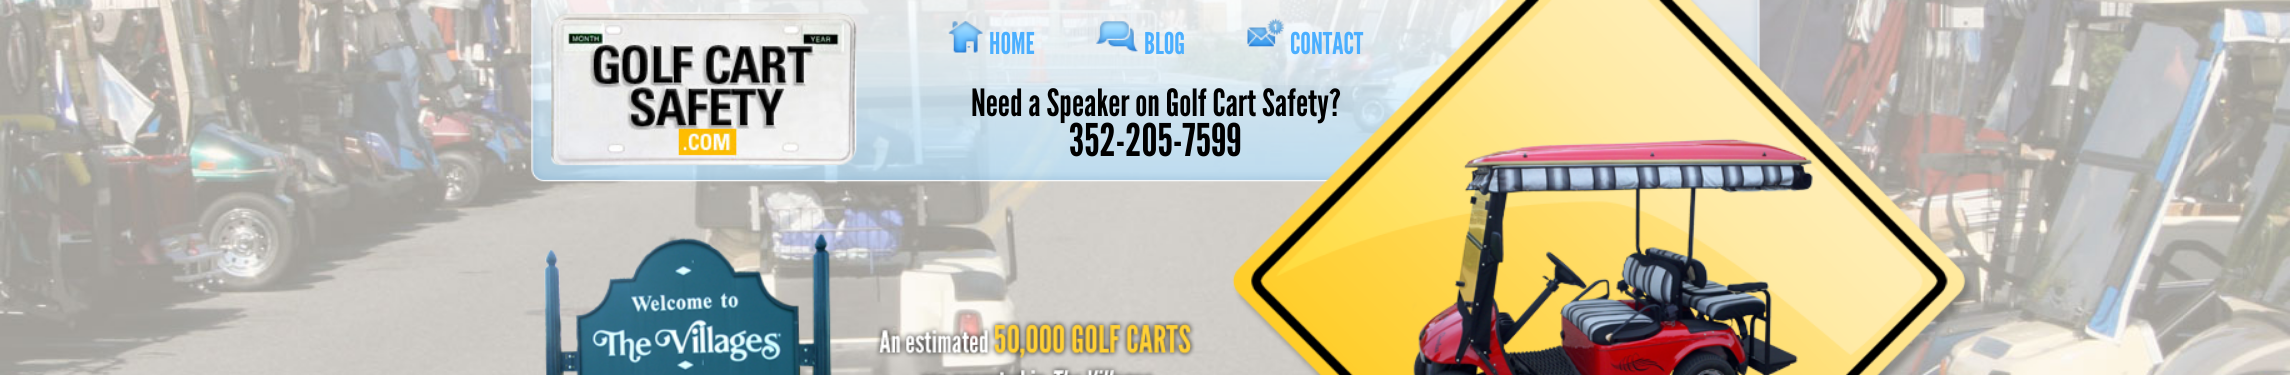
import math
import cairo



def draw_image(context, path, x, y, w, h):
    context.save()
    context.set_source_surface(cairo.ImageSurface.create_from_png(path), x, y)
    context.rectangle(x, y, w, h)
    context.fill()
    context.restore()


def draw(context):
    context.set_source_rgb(1, 1, 1)
    context.paint()
    draw_image(context, "images/1.png", 0, 0, 2290, 375)
    draw_image(context, "images/2.png", 531, 0, 1229, 182)
    draw_image(context, "images/3.png", 551, 12, 306, 154)
    draw_image(context, "images/4.png", 948, 20, 35, 33)
    draw_image(context, "images/5.png", 1096, 21, 42, 31)
    draw_image(context, "images/7.png", 1232, 0, 741, 375)
    draw_image(context, "images/6.png", 1247, 18, 37, 29)
    draw_image(context, "images/8.png", 544, 233, 651, 142)
    context.select_font_face("League Gothic")
    context.set_font_size(30)
    context.set_source_rgb(75 / 255, 175 / 255, 1)
    context.move_to(989, 54)
    context.show_text("HOME")
    context.move_to(1144, 54)
    context.show_text("BLOG")
    context.move_to(1290, 54)
    context.show_text("CONTACT")
    context.set_font_size(37.5)
    context.set_source_rgb(0, 0, 0)
    context.move_to(971, 116)
    context.show_text("Need a Speaker on Golf Cart Safety?")
    context.set_font_size(45)
    context.move_to(1069, 156)
    context.show_text("352-205-7599")


surface = cairo.ImageSurface(cairo.Format.RGB24, 2290, 375)
context = cairo.Context(surface)
options = cairo.FontOptions()
options.set_hint_metrics(cairo.HintMetrics.OFF)
options.set_hint_style(cairo.HintStyle.NONE)
context.set_font_options(options)
context.set_miter_limit(4)
draw(context)
surface.write_to_png("out.png")
